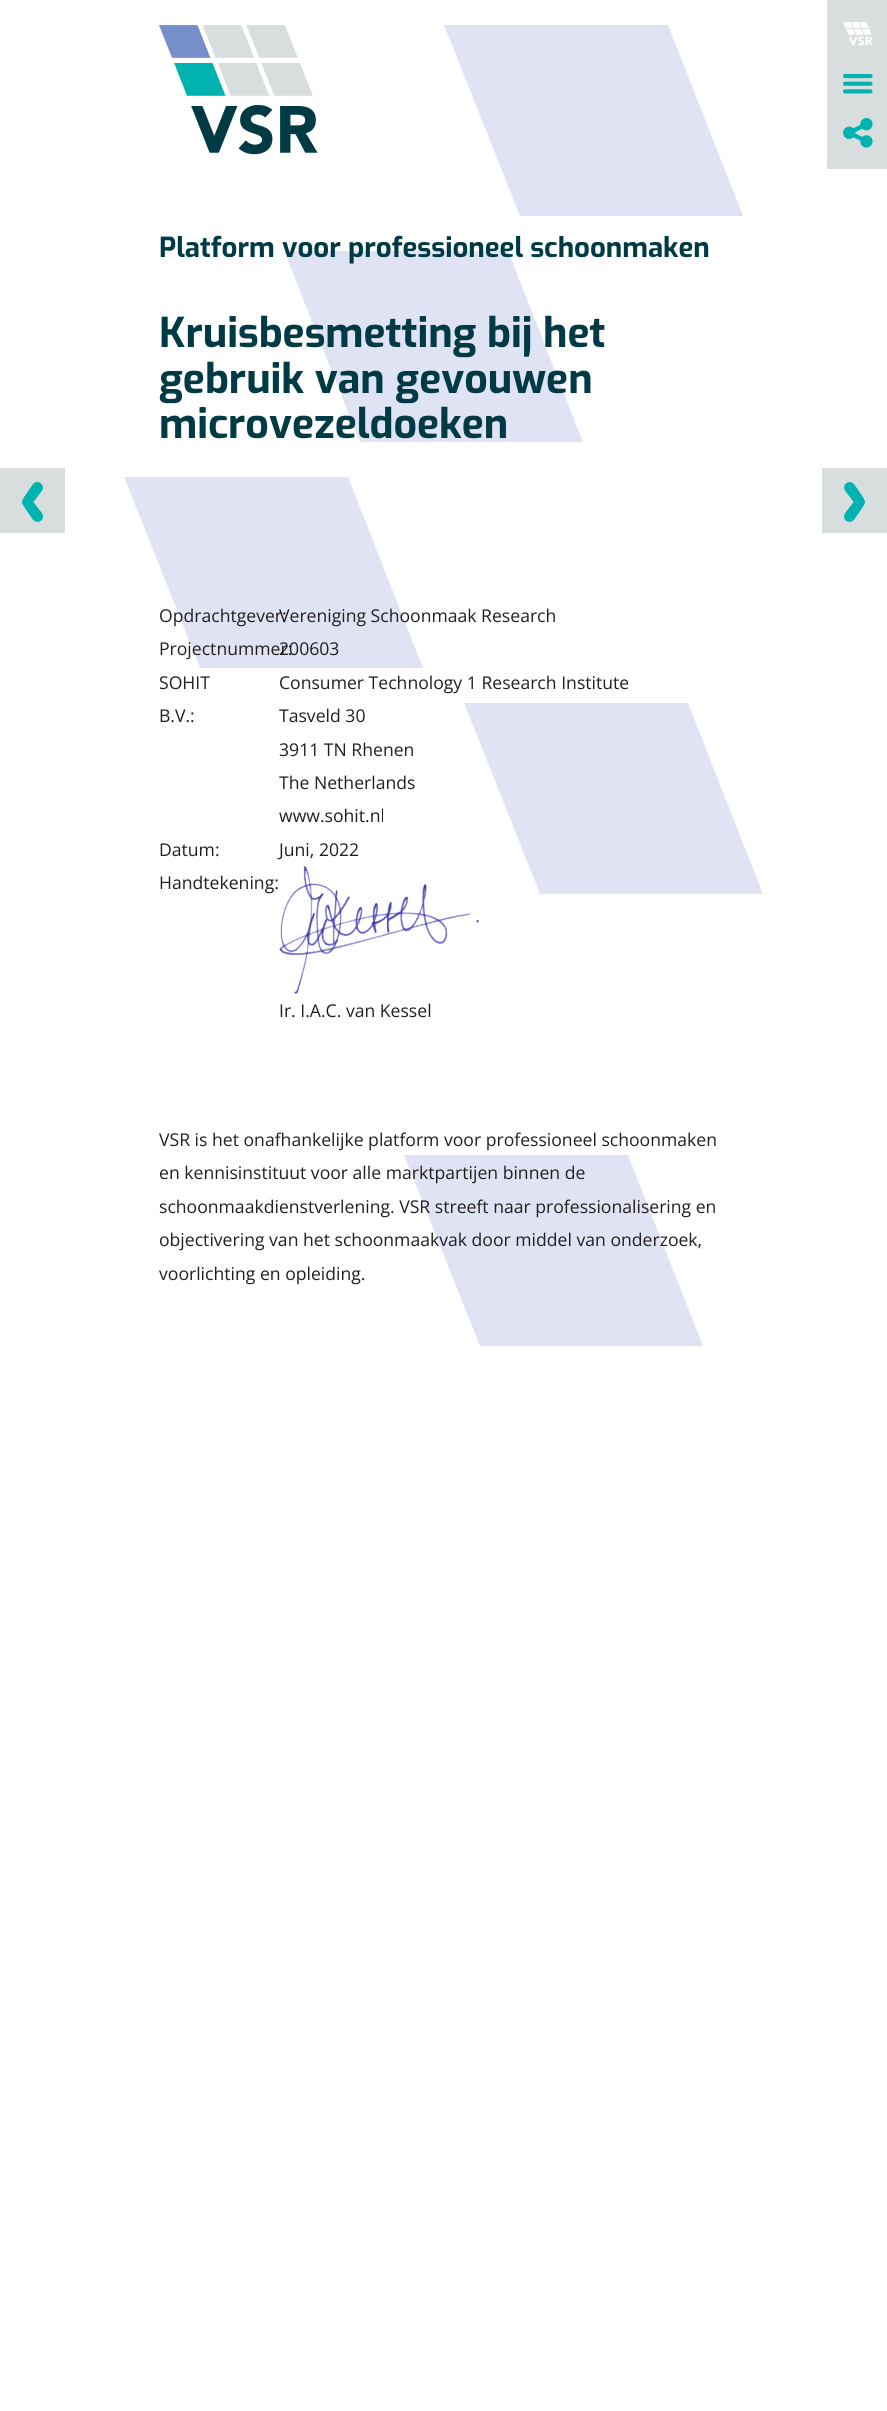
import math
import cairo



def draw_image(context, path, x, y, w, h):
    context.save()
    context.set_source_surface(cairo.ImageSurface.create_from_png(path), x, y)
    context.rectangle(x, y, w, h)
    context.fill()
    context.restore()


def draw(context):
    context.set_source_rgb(1, 1, 1)
    context.paint()
    context.set_source_rgb(216 / 255, 221 / 255, 221 / 255)
    context.rectangle(827, 0, 60, 169)
    context.fill()
    draw_image(context, "images/1.png", 843, 22, 30, 24)
    draw_image(context, "images/2.png", 843, 74, 30, 20)
    draw_image(context, "images/3.png", 843, 118, 30, 30)
    draw_image(context, "images/4.png", 159, 25, 159, 130)
    context.set_source_rgb(224 / 255, 227 / 255, 244 / 255)
    context.new_path()
    context.move_to(668, 25)
    context.line_to(743, 216)
    context.line_to(520, 216)
    context.line_to(444, 25)
    context.close_path()
    context.fill()
    context.new_path()
    context.move_to(508, 251)
    context.line_to(583, 442)
    context.line_to(360, 442)
    context.line_to(284, 251)
    context.close_path()
    context.fill()
    context.new_path()
    context.move_to(348, 477)
    context.line_to(423, 668)
    context.line_to(200, 668)
    context.line_to(124, 477)
    context.close_path()
    context.fill()
    context.new_path()
    context.move_to(688, 703)
    context.line_to(763, 894)
    context.line_to(540, 894)
    context.line_to(464, 703)
    context.close_path()
    context.fill()
    context.new_path()
    context.move_to(628, 1155)
    context.line_to(703, 1346)
    context.line_to(480, 1346)
    context.line_to(404, 1155)
    context.close_path()
    context.fill()
    context.set_source_rgb(216 / 255, 221 / 255, 221 / 255)
    context.rectangle(822, 468, 65, 65)
    context.fill()
    draw_image(context, "images/5.png", 844, 482, 21, 40)
    context.rectangle(0, 468, 65, 65)
    context.fill()
    draw_image(context, "images/6.png", 22, 482, 21, 40)
    draw_image(context, "images/7.png", 279, 866, 200, 128)
    context.select_font_face("Exo", cairo.FontSlant.NORMAL, cairo.FontWeight.BOLD)
    context.set_font_size(27.6)
    context.set_source_rgb(0, 59 / 255, 69 / 255)
    context.move_to(159, 257)
    context.show_text("Platform voor professioneel schoonmaken")
    context.set_font_size(41)
    context.move_to(159, 347)
    context.show_text("Kruisbesmetting bij het")
    context.move_to(159, 393)
    context.show_text("gebruik van gevouwen")
    context.move_to(159, 438)
    context.show_text("microvezeldoeken")
    context.select_font_face("Open Sans")
    context.set_font_size(17.6)
    context.set_source_rgb(35 / 255, 31 / 255, 32 / 255)
    context.move_to(159, 622)
    context.show_text("Opdrachtgever:")
    context.move_to(279, 622)
    context.show_text("Vereniging Schoonmaak Research")
    context.move_to(159, 655)
    context.show_text("Projectnummer:")
    context.move_to(279, 655)
    context.show_text("200603")
    context.move_to(159, 689)
    context.show_text("SOHIT")
    context.move_to(159, 722)
    context.show_text("B.V.:")
    context.move_to(279, 689)
    context.show_text("Consumer Technology 1 Research Institute")
    context.move_to(279, 722)
    context.show_text("Tasveld 30")
    context.move_to(279, 756)
    context.show_text("3911 TN Rhenen")
    context.move_to(279, 789)
    context.show_text("The Netherlands")
    context.move_to(279, 822)
    context.show_text("www.sohit.nl")
    context.move_to(159, 856)
    context.show_text("Datum:")
    context.move_to(279, 856)
    context.show_text("Juni, 2022")
    context.move_to(159, 889)
    context.show_text("Handtekening:")
    context.move_to(279, 1017)
    context.show_text("Ir. I.A.C. van Kessel")
    context.move_to(159, 1146)
    context.show_text("VSR is het onafhankelijke platform voor professioneel schoonmaken")
    context.move_to(159, 1179)
    context.show_text("en kennisinstituut voor alle marktpartijen binnen de")
    context.move_to(159, 1213)
    context.show_text("schoonmaakdienstverlening. VSR streeft naar professionalisering en")
    context.move_to(159, 1246)
    context.show_text("objectivering van het schoonmaakvak door middel van onderzoek,")
    context.move_to(159, 1280)
    context.show_text("voorlichting en opleiding.")


surface = cairo.ImageSurface(cairo.Format.RGB24, 887, 2411)
context = cairo.Context(surface)
options = cairo.FontOptions()
options.set_hint_metrics(cairo.HintMetrics.OFF)
options.set_hint_style(cairo.HintStyle.NONE)
context.set_font_options(options)
context.set_miter_limit(4)
draw(context)
surface.write_to_png("out.png")
